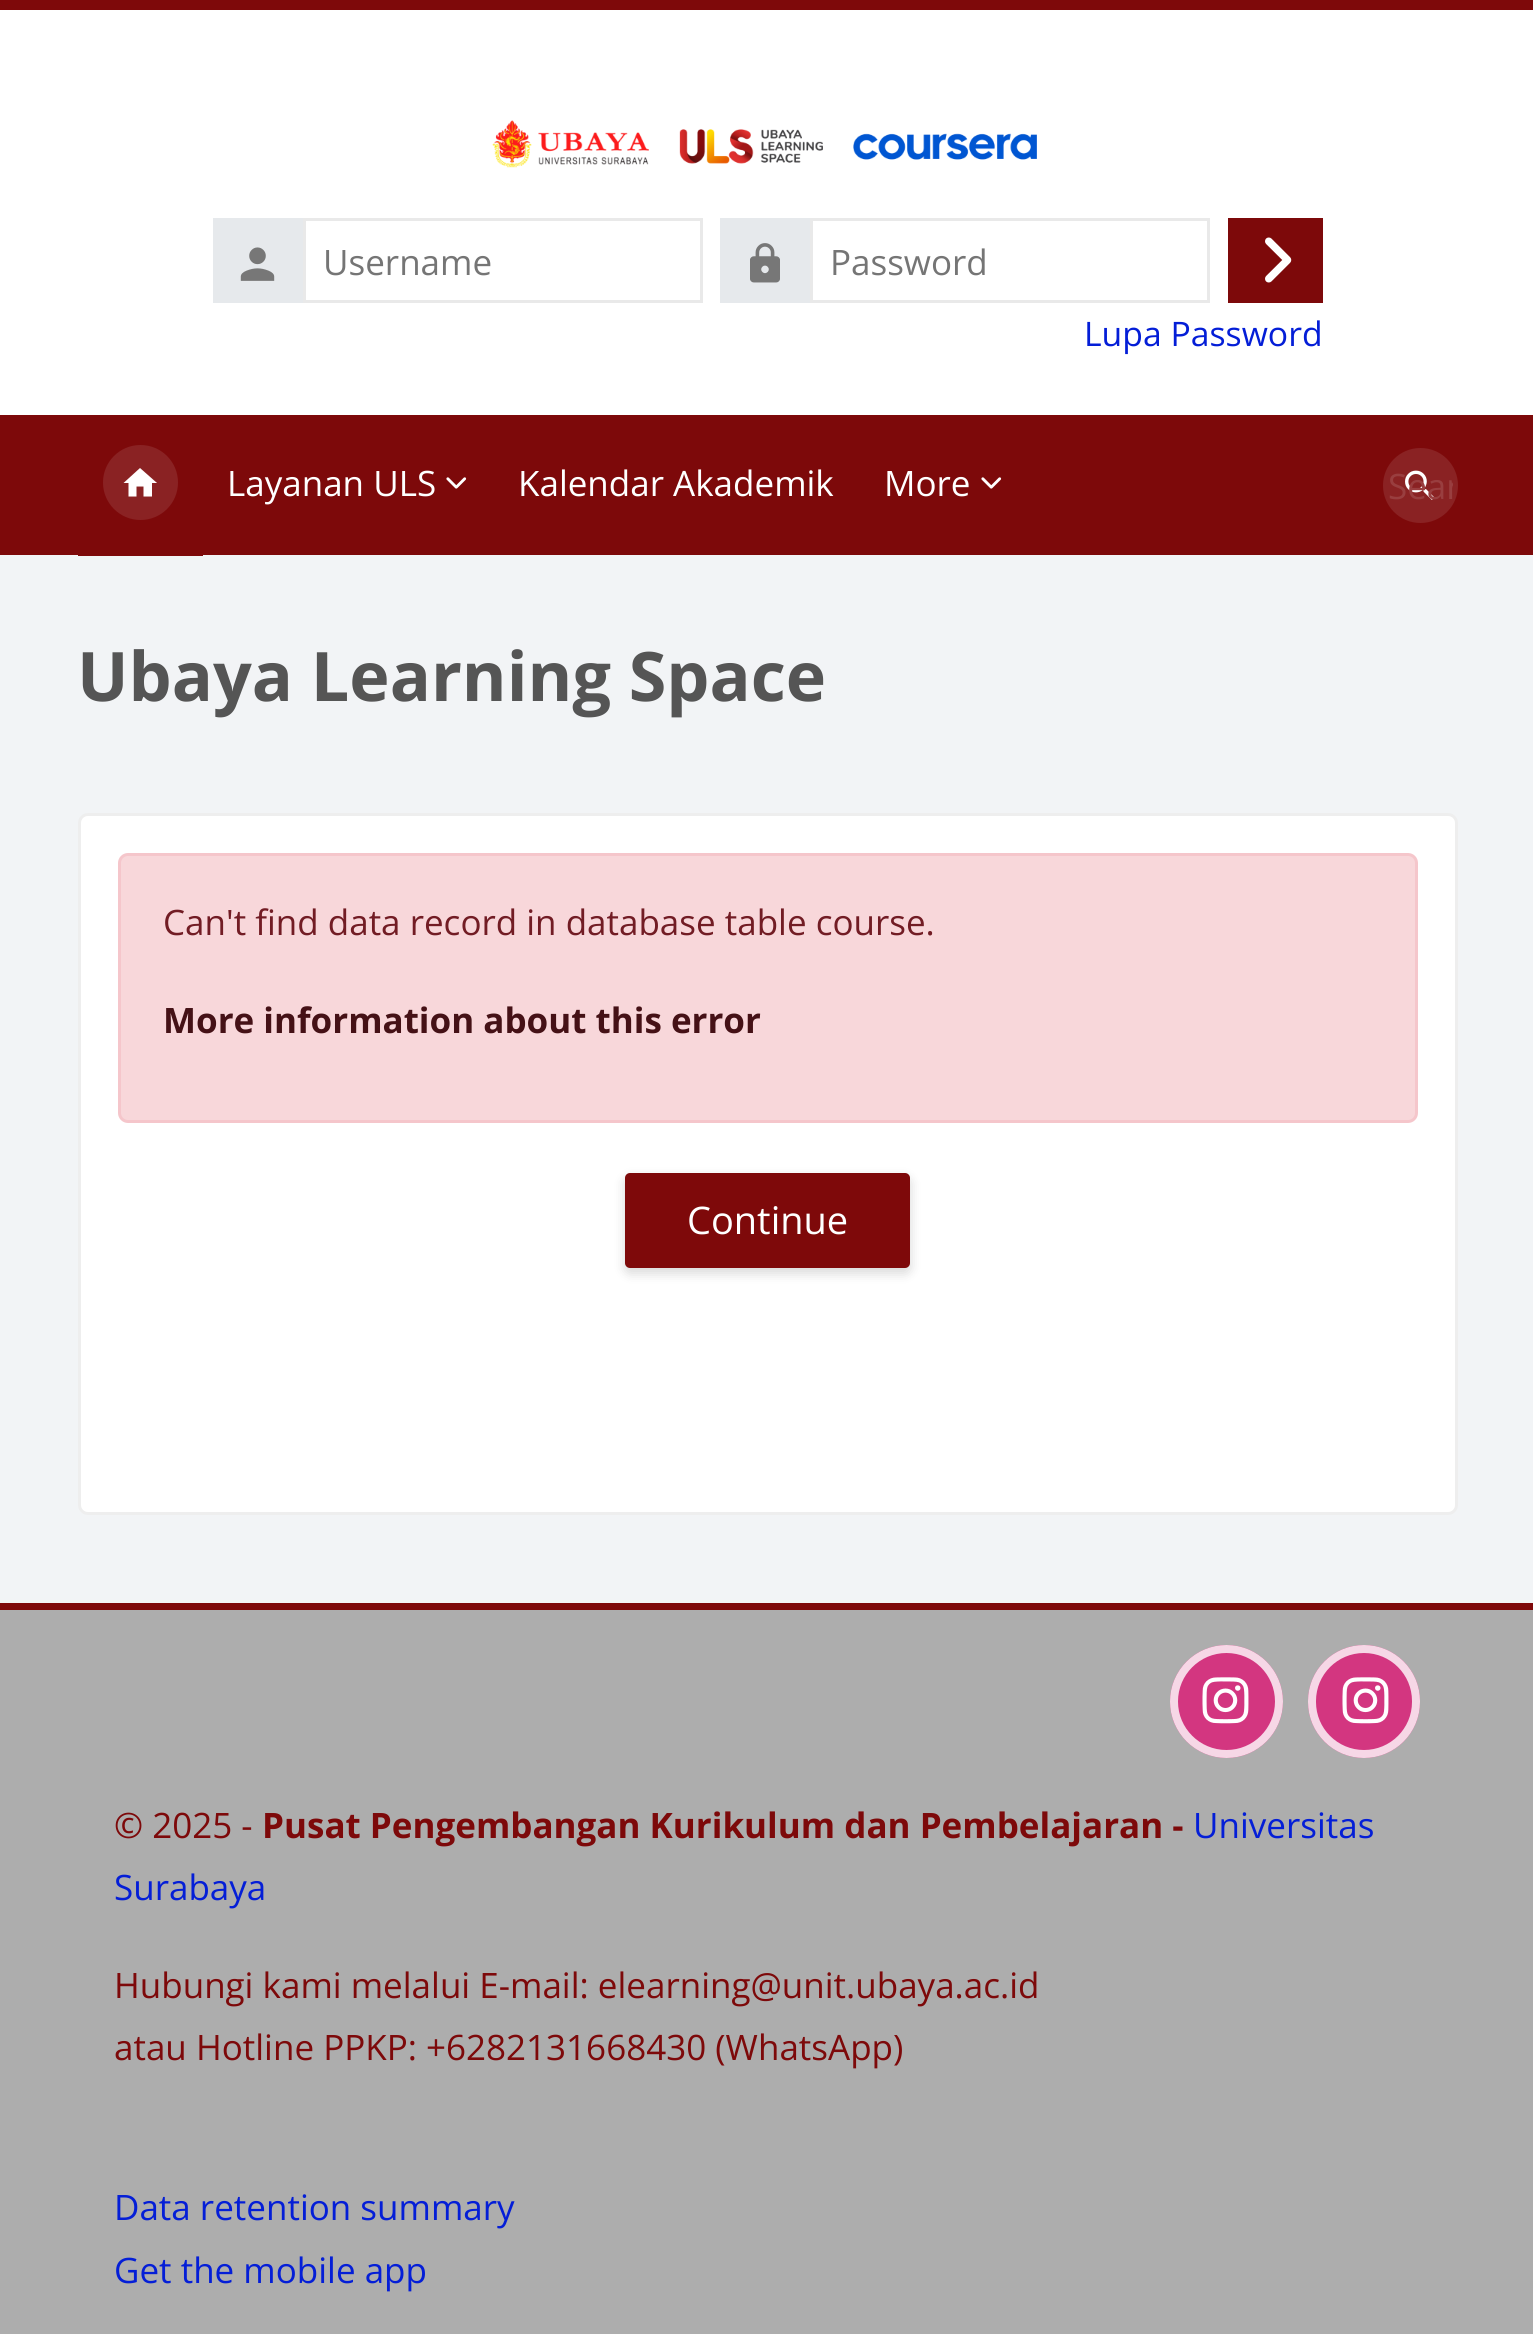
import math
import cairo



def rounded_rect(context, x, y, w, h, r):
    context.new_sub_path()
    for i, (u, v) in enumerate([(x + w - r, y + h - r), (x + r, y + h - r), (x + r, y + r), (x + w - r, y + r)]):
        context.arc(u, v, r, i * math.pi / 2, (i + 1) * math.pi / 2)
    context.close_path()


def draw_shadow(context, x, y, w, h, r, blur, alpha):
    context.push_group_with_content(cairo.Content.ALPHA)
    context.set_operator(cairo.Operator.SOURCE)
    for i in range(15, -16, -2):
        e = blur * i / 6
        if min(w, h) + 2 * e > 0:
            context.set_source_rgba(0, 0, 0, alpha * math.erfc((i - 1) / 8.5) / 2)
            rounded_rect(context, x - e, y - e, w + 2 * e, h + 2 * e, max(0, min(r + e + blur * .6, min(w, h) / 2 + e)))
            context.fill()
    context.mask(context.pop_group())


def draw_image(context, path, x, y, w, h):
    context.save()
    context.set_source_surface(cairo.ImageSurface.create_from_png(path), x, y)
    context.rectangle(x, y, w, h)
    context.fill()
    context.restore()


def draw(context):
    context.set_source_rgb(242 / 255, 244 / 255, 246 / 255)
    context.paint()
    context.set_source_rgb(126 / 255, 9 / 255, 10 / 255)
    context.rectangle(0, 0, 1533, 10)
    context.fill()
    context.set_source_rgb(1, 1, 1)
    context.rectangle(0, 10, 1533, 405)
    context.fill()
    draw_image(context, "images/1.png", 492, 120, 545, 48)
    context.set_source_rgb(230 / 255, 233 / 255, 236 / 255)
    context.rectangle(213, 218, 90, 85)
    context.fill()
    draw_image(context, "images/2.png", 240, 247, 35, 34)
    context.rectangle(304.5, 219.5, 397, 82)
    context.set_source_rgb(233 / 255, 233 / 255, 233 / 255)
    context.set_line_width(3)
    context.stroke()
    context.set_source_rgb(230 / 255, 233 / 255, 236 / 255)
    context.rectangle(720, 218, 90, 85)
    context.fill()
    draw_image(context, "images/3.png", 750, 243, 30, 40)
    context.rectangle(811.5, 219.5, 397, 82)
    context.set_source_rgb(233 / 255, 233 / 255, 233 / 255)
    context.stroke()
    context.set_source_rgb(125 / 255, 9 / 255, 10 / 255)
    context.rectangle(1228, 218, 95, 85)
    context.fill()
    draw_image(context, "images/4.png", 1265, 237, 27, 46)
    context.rectangle(0, 415, 1533, 140)
    context.fill()
    context.set_source_rgb(126 / 255, 9 / 255, 10 / 255)
    context.rectangle(78, 555, 125, 1)
    context.fill()
    context.set_source_rgb(138 / 255, 34 / 255, 35 / 255)
    context.arc(140.5, 482.5, 37.5, 0, 2 * math.pi)
    context.fill()
    context.set_source_rgb(1, 1, 1)
    context.new_path()
    context.move_to(136.5, 496.5)
    context.line_to(128.5, 496.5)
    context.line_to(128.5, 483)
    context.line_to(123.5, 483)
    context.line_to(140, 468)
    context.line_to(157, 483)
    context.line_to(152, 483)
    context.line_to(152, 496.5)
    context.line_to(143.5, 496.5)
    context.line_to(143.5, 486.5)
    context.line_to(136.5, 486.5)
    context.close_path()
    context.fill()
    draw_image(context, "images/5.png", 446, 477, 21, 12)
    draw_image(context, "images/5.png", 981, 477, 21, 12)
    context.set_source_rgb(138 / 255, 34 / 255, 35 / 255)
    context.arc(1420.5, 485.5, 37.5, 0, 2 * math.pi)
    context.fill()
    draw_image(context, "images/6.png", 1405, 470, 30, 30)
    context.set_source_rgb(1, 1, 1)
    rounded_rect(context, 78, 813, 1380, 702, 10)
    context.fill()
    rounded_rect(context, 79.5, 814.5, 1377, 699, 8.5)
    context.set_source_rgba(0, 0, 0, 0.07)
    context.stroke()
    context.set_source_rgb(248 / 255, 215 / 255, 218 / 255)
    rounded_rect(context, 119.5, 854.5, 1297, 267, 8.5)
    context.fill_preserve()
    context.set_source_rgb(245 / 255, 198 / 255, 203 / 255)
    context.stroke()
    context.set_source_rgb(0, 0, 0)
    draw_shadow(context, 625, 1178, 285, 95, 5, 6, 0.16)
    context.set_source_rgb(126 / 255, 9 / 255, 10 / 255)
    rounded_rect(context, 625, 1173, 285, 95, 5)
    context.fill()
    context.rectangle(0, 1603, 1533, 7)
    context.fill()
    context.set_source_rgb(173 / 255, 173 / 255, 173 / 255)
    context.rectangle(0, 1610, 1533, 724)
    context.fill()
    context.set_source_rgb(211 / 255, 54 / 255, 128 / 255)
    context.arc(1226.5, 1701.5, 56.5, 0, 2 * math.pi)
    context.fill()
    context.arc(1226.5, 1701.5, 52.5, 0, 2 * math.pi)
    context.set_source_rgba(1, 1, 1, 0.8)
    context.set_line_width(8)
    context.stroke()
    draw_image(context, "images/7.png", 1202, 1677, 47, 47)
    context.set_source_rgb(211 / 255, 54 / 255, 128 / 255)
    rounded_rect(context, 1308, 1645, 112, 113, 56)
    context.fill()
    rounded_rect(context, 1312, 1649, 104, 105, 52)
    context.set_source_rgba(1, 1, 1, 0.8)
    context.stroke()
    draw_image(context, "images/7.png", 1342, 1677, 47, 47)
    context.select_font_face("Open Sans")
    context.set_font_size(35)
    context.set_source_rgb(117 / 255, 117 / 255, 117 / 255)
    context.move_to(323, 275)
    context.show_text("Username")
    context.move_to(830, 275)
    context.show_text("Password")
    context.set_font_size(33.75)
    context.set_source_rgb(4 / 255, 30 / 255, 215 / 255)
    context.move_to(1084, 346)
    context.show_text("Lupa Password")
    context.set_font_size(35)
    context.set_source_rgb(1, 1, 1)
    context.move_to(227, 496)
    context.show_text("Layanan ULS")
    context.move_to(518, 496)
    context.show_text("Kalendar Akademik")
    context.move_to(884, 496)
    context.show_text("More")
    context.save()
    context.rectangle(1388, 460, 65, 48)
    context.clip()
    context.set_source_rgb(153 / 255, 62 / 255, 63 / 255)
    context.move_to(1388, 499)
    context.show_text("Sear")
    context.restore()
    context.select_font_face("Open Sans", cairo.FontSlant.NORMAL, cairo.FontWeight.BOLD)
    context.set_font_size(68.25)
    context.set_source_rgb(85 / 255, 85 / 255, 85 / 255)
    context.move_to(77, 701)
    context.show_text("Ubaya Learning Space")
    context.select_font_face("Open Sans")
    context.set_font_size(35)
    context.set_source_rgb(114 / 255, 28 / 255, 36 / 255)
    context.move_to(163, 935)
    context.show_text("Can't find data record in database table course.")
    context.select_font_face("Open Sans", cairo.FontSlant.NORMAL, cairo.FontWeight.BOLD)
    context.set_source_rgb(69 / 255, 17 / 255, 22 / 255)
    context.move_to(163, 1033)
    context.show_text("More information about this error")
    context.select_font_face("Open Sans")
    context.set_font_size(38)
    context.set_source_rgb(1, 1, 1)
    context.move_to(687, 1234)
    context.show_text("Continue")
    context.set_font_size(35)
    context.set_source_rgb(125 / 255, 9 / 255, 10 / 255)
    context.move_to(114, 1838)
    context.show_text("© 2025 -")
    context.select_font_face("Open Sans", cairo.FontSlant.NORMAL, cairo.FontWeight.BOLD)
    context.move_to(262, 1838)
    context.show_text("Pusat Pengembangan Kurikulum dan Pembelajaran -")
    context.select_font_face("Open Sans")
    context.set_source_rgb(4 / 255, 30 / 255, 215 / 255)
    context.move_to(1193, 1838)
    context.show_text("Universitas")
    context.move_to(114, 1900)
    context.show_text("Surabaya")
    context.set_source_rgb(125 / 255, 9 / 255, 10 / 255)
    context.move_to(114, 1998)
    context.show_text("Hubungi kami melalui E-mail: elearning@unit.ubaya.ac.id")
    context.move_to(114, 2060)
    context.show_text("atau Hotline PPKP: +6282131668430 (WhatsApp)")
    context.set_source_rgb(4 / 255, 30 / 255, 215 / 255)
    context.move_to(114, 2220)
    context.show_text("Data retention summary")
    context.move_to(114, 2283)
    context.show_text("Get the mobile app")


surface = cairo.ImageSurface(cairo.Format.RGB24, 1533, 2334)
context = cairo.Context(surface)
options = cairo.FontOptions()
options.set_hint_metrics(cairo.HintMetrics.OFF)
options.set_hint_style(cairo.HintStyle.NONE)
context.set_font_options(options)
context.set_miter_limit(4)
draw(context)
surface.write_to_png("out.png")
